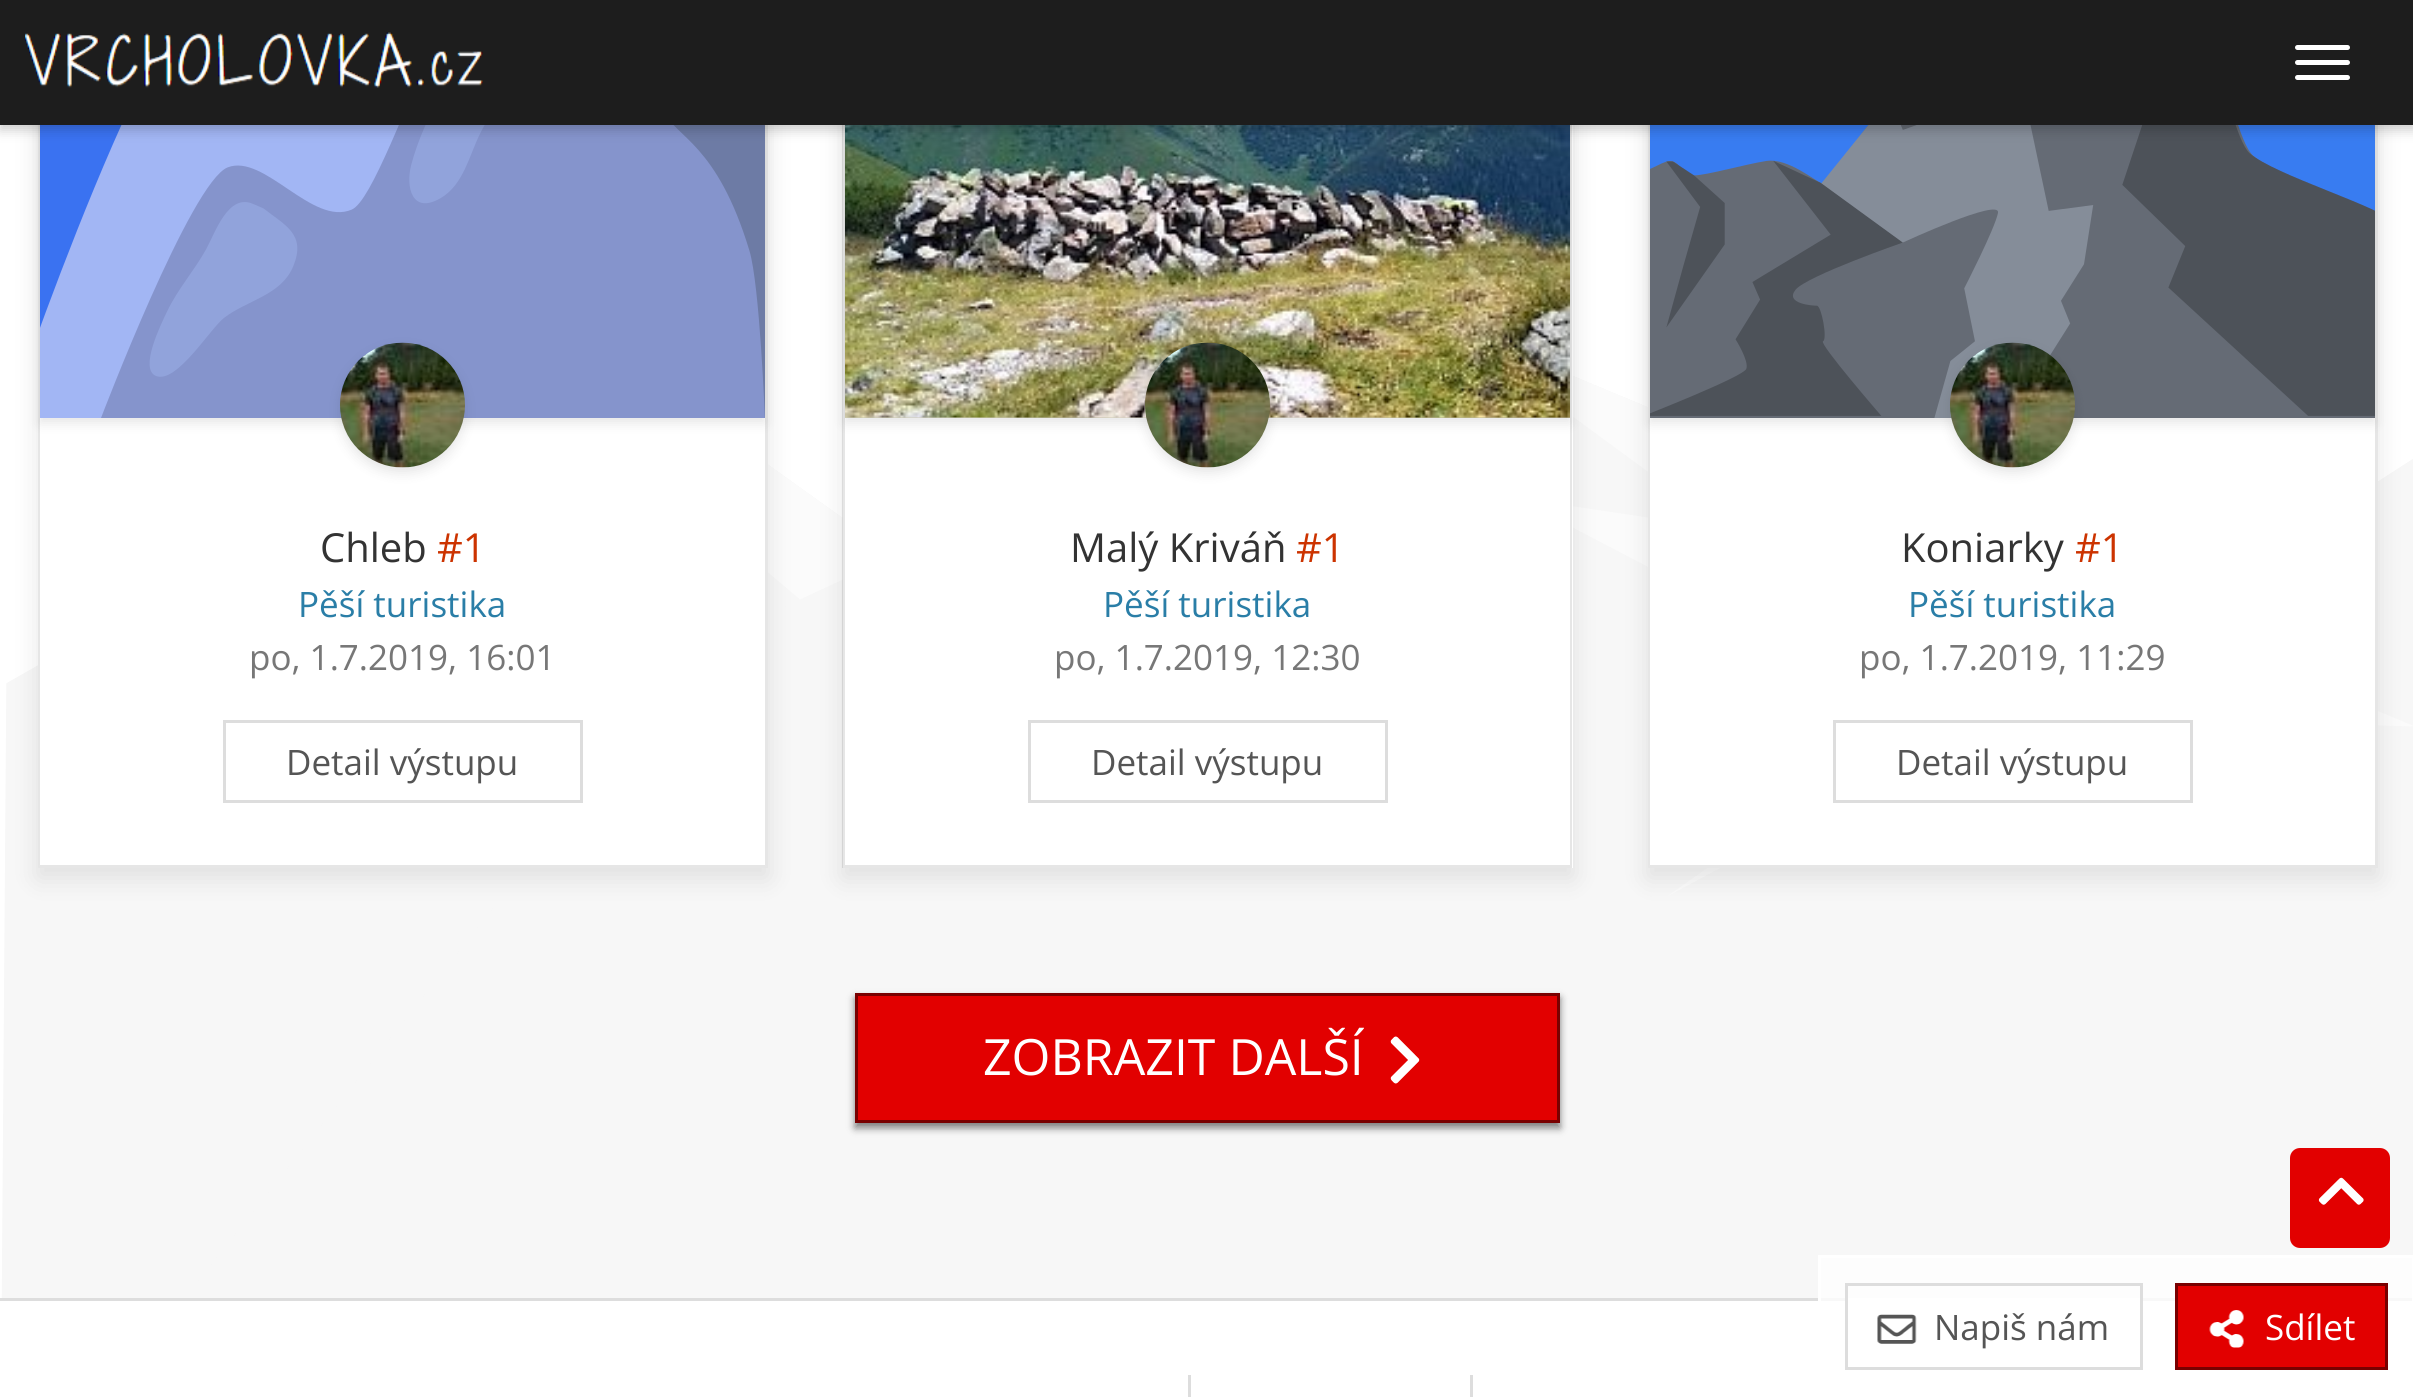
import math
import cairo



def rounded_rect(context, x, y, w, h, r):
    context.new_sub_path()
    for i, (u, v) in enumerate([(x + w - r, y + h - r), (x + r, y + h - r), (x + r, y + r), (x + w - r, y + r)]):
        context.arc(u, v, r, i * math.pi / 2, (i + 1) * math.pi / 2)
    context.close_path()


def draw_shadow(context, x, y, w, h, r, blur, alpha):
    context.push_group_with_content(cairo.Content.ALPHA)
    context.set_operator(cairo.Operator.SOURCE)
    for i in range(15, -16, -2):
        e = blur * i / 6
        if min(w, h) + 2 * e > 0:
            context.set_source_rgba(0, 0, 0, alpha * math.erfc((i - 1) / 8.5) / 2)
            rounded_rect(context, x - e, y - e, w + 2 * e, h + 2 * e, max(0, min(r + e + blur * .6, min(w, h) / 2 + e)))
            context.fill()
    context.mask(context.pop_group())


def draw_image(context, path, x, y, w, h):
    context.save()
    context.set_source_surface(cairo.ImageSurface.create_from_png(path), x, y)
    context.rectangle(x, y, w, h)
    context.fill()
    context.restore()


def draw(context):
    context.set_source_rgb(1, 1, 1)
    context.paint()
    draw_image(context, "images/1.png", 1, 376, 2412, 922)
    context.set_source_rgb(0, 0, 0)
    draw_shadow(context, 38, -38, 730, 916, 0, 12.5, 0.1)
    context.set_source_rgb(1, 1, 1)
    context.rectangle(38, 125, 730, 743)
    context.fill()
    context.set_source_rgb(230 / 255, 230 / 255, 230 / 255)
    context.new_path()
    context.move_to(768, -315)
    context.line_to(768, 868)
    context.line_to(765, 865)
    context.line_to(765, -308)
    context.close_path()
    context.fill()
    context.set_source_rgba(0, 0, 0, 0.1)
    context.new_path()
    context.move_to(768, 868)
    context.line_to(38, 868)
    context.line_to(40, 865)
    context.line_to(765, 865)
    context.close_path()
    context.fill()
    context.new_path()
    context.move_to(38, 868)
    context.line_to(38, -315)
    context.line_to(40, -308)
    context.line_to(40, 865)
    context.close_path()
    context.fill()
    context.save()
    context.set_fill_rule(cairo.FillRule.EVEN_ODD)
    context.new_path()
    context.move_to(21, 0)
    context.line_to(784, 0)
    context.line_to(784, 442)
    context.line_to(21, 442)
    context.close_path()
    context.move_to(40, -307)
    context.line_to(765, -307)
    context.line_to(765, 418)
    context.line_to(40, 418)
    context.close_path()
    context.clip()
    context.set_source_rgb(0, 0, 0)
    draw_shadow(context, 40, -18, 725, 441, 0, 6, 0.1)
    context.restore()
    draw_image(context, "images/3.png", 40, 125, 725, 293)
    context.set_source_rgb(0, 0, 0)
    draw_shadow(context, 843, -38, 730, 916, 0, 12.5, 0.1)
    context.set_source_rgb(1, 1, 1)
    context.rectangle(843, 125, 730, 743)
    context.fill()
    context.set_source_rgb(230 / 255, 230 / 255, 230 / 255)
    context.new_path()
    context.move_to(1572, -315)
    context.line_to(1572, 868)
    context.line_to(1570, 865)
    context.line_to(1570, -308)
    context.close_path()
    context.fill()
    context.set_source_rgba(0, 0, 0, 0.1)
    context.new_path()
    context.move_to(1572, 868)
    context.line_to(842, 868)
    context.line_to(845, 865)
    context.line_to(1570, 865)
    context.close_path()
    context.fill()
    context.new_path()
    context.move_to(842, 868)
    context.line_to(842, -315)
    context.line_to(845, -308)
    context.line_to(845, 865)
    context.close_path()
    context.fill()
    context.set_source_rgb(0, 0, 0)
    draw_shadow(context, 845, -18, 725, 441, 0, 6, 0.1)
    draw_image(context, "images/5.png", 845, 417, 725, 1)
    draw_image(context, "images/6.png", 845, 125, 725, 293)
    draw_shadow(context, 1648, -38, 730, 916, 0, 12.5, 0.1)
    context.set_source_rgb(1, 1, 1)
    context.rectangle(1648, 125, 730, 743)
    context.fill()
    context.set_source_rgb(230 / 255, 230 / 255, 230 / 255)
    context.new_path()
    context.move_to(2378, -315)
    context.line_to(2378, 868)
    context.line_to(2375, 865)
    context.line_to(2375, -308)
    context.close_path()
    context.fill()
    context.set_source_rgba(0, 0, 0, 0.1)
    context.new_path()
    context.move_to(2378, 868)
    context.line_to(1648, 868)
    context.line_to(1650, 865)
    context.line_to(2375, 865)
    context.close_path()
    context.fill()
    context.new_path()
    context.move_to(1648, 868)
    context.line_to(1648, -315)
    context.line_to(1650, -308)
    context.line_to(1650, 865)
    context.close_path()
    context.fill()
    context.save()
    context.set_fill_rule(cairo.FillRule.EVEN_ODD)
    context.new_path()
    context.move_to(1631, 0)
    context.line_to(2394, 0)
    context.line_to(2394, 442)
    context.line_to(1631, 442)
    context.close_path()
    context.move_to(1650, -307)
    context.line_to(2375, -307)
    context.line_to(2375, 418)
    context.line_to(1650, 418)
    context.close_path()
    context.clip()
    context.set_source_rgb(0, 0, 0)
    draw_shadow(context, 1650, -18, 725, 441, 0, 6, 0.1)
    context.restore()
    draw_image(context, "images/8.png", 1650, 125, 725, 293)
    context.set_source_rgb(0, 0, 0)
    draw_shadow(context, 0, 5, 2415, 125, 0, 6, 0.2)
    context.set_source_rgb(29 / 255, 29 / 255, 29 / 255)
    context.rectangle(0, 0, 2413, 125)
    context.fill()
    draw_image(context, "images/2.png", 25, 32, 458, 56)
    context.set_source_rgb(1, 1, 1)
    rounded_rect(context, 2295, 45, 55, 5, 2.5)
    context.fill()
    rounded_rect(context, 2295, 60, 55, 5, 2.5)
    context.fill()
    rounded_rect(context, 2295, 75, 55, 5, 2.5)
    context.fill()
    context.set_source_rgb(0, 0, 0)
    draw_shadow(context, 340, 348, 125, 125, 62.5, 6, 0.1)
    draw_image(context, "images/4.png", 340, 342, 125, 126)
    context.rectangle(224.5, 721.5, 357, 80)
    context.set_source_rgb(221 / 255, 221 / 255, 221 / 255)
    context.set_line_width(3)
    context.stroke()
    context.set_source_rgb(0, 0, 0)
    draw_shadow(context, 1145, 348, 125, 125, 62.5, 6, 0.1)
    draw_image(context, "images/7.png", 1145, 342, 125, 126)
    context.rectangle(1029.5, 721.5, 357, 80)
    context.set_source_rgb(221 / 255, 221 / 255, 221 / 255)
    context.stroke()
    context.set_source_rgb(0, 0, 0)
    draw_shadow(context, 1950, 348, 125, 125, 62.5, 6, 0.1)
    draw_image(context, "images/9.png", 1950, 342, 125, 126)
    context.rectangle(1834.5, 721.5, 357, 80)
    context.set_source_rgb(221 / 255, 221 / 255, 221 / 255)
    context.stroke()
    context.set_source_rgb(0, 0, 0)
    draw_shadow(context, 855, 998, 705, 130, 0, 4, 0.5)
    context.set_source_rgb(226 / 255, 0, 0)
    context.rectangle(856.5, 994.5, 702, 127)
    context.fill_preserve()
    context.set_source_rgb(121 / 255, 0, 0)
    context.stroke()
    draw_image(context, "images/10.png", 1390, 1036, 30, 48)
    context.set_source_rgb(226 / 255, 0, 0)
    rounded_rect(context, 2290, 1148, 100, 100, 10)
    context.fill()
    draw_image(context, "images/11.png", 2318, 1177, 46, 28)
    context.set_source_rgb(221 / 255, 221 / 255, 221 / 255)
    context.rectangle(0, 1298, 2413, 3)
    context.fill()
    context.rectangle(1188, 1375, 3, 22)
    context.fill()
    context.rectangle(1470, 1375, 3, 22)
    context.fill()
    context.set_source_rgba(1, 1, 1, 0.8)
    context.rectangle(1821, 1258, 591, 43)
    context.fill()
    context.rectangle(1819.5, 1256.5, 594, 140)
    context.set_source_rgb(1, 1, 1)
    context.stroke()
    context.rectangle(1848, 1298, 292, 3)
    context.fill()
    context.rectangle(1846.5, 1284.5, 295, 84)
    context.set_source_rgb(221 / 255, 221 / 255, 221 / 255)
    context.stroke()
    draw_image(context, "images/12.png", 1877, 1314, 40, 30)
    context.set_source_rgb(226 / 255, 0, 0)
    context.rectangle(2176.5, 1284.5, 210, 84)
    context.fill_preserve()
    context.set_source_rgb(121 / 255, 0, 0)
    context.stroke()
    draw_image(context, "images/13.png", 2209, 1310, 35, 38)
    context.select_font_face("Open Sans")
    context.set_font_size(40)
    context.set_source_rgb(51 / 255, 51 / 255, 51 / 255)
    context.move_to(320, 562)
    context.show_text("Chleb")
    context.set_source_rgb(204 / 255, 51 / 255, 0)
    context.move_to(437, 562)
    context.show_text("#1")
    context.set_font_size(35)
    context.set_source_rgb(42 / 255, 126 / 255, 167 / 255)
    context.move_to(298, 617)
    context.show_text("Pěší turistika")
    context.set_source_rgb(119 / 255, 119 / 255, 119 / 255)
    context.move_to(249, 670)
    context.show_text("po, 1.7.2019, 16:01")
    context.set_source_rgb(85 / 255, 85 / 255, 85 / 255)
    context.move_to(286, 775)
    context.show_text("Detail výstupu")
    context.set_font_size(40)
    context.set_source_rgb(51 / 255, 51 / 255, 51 / 255)
    context.move_to(1070, 562)
    context.show_text("Malý Kriváň")
    context.set_source_rgb(204 / 255, 51 / 255, 0)
    context.move_to(1296, 562)
    context.show_text("#1")
    context.set_font_size(35)
    context.set_source_rgb(42 / 255, 126 / 255, 167 / 255)
    context.move_to(1103, 617)
    context.show_text("Pěší turistika")
    context.set_source_rgb(119 / 255, 119 / 255, 119 / 255)
    context.move_to(1054, 670)
    context.show_text("po, 1.7.2019, 12:30")
    context.set_source_rgb(85 / 255, 85 / 255, 85 / 255)
    context.move_to(1091, 775)
    context.show_text("Detail výstupu")
    context.set_font_size(40)
    context.set_source_rgb(51 / 255, 51 / 255, 51 / 255)
    context.move_to(1901, 562)
    context.show_text("Koniarky")
    context.set_source_rgb(204 / 255, 51 / 255, 0)
    context.move_to(2075, 562)
    context.show_text("#1")
    context.set_font_size(35)
    context.set_source_rgb(42 / 255, 126 / 255, 167 / 255)
    context.move_to(1908, 617)
    context.show_text("Pěší turistika")
    context.set_source_rgb(119 / 255, 119 / 255, 119 / 255)
    context.move_to(1859, 670)
    context.show_text("po, 1.7.2019, 11:29")
    context.set_source_rgb(85 / 255, 85 / 255, 85 / 255)
    context.move_to(1896, 775)
    context.show_text("Detail výstupu")
    context.set_font_size(50)
    context.set_source_rgb(1, 1, 1)
    context.move_to(983, 1075)
    context.show_text("ZOBRAZIT DALŠÍ")
    context.set_font_size(35)
    context.set_source_rgb(85 / 255, 85 / 255, 85 / 255)
    context.move_to(1934, 1340)
    context.show_text("Napiš nám")
    context.set_source_rgb(1, 1, 1)
    context.move_to(2265, 1340)
    context.show_text("Sdílet")


surface = cairo.ImageSurface(cairo.Format.RGB24, 2413, 1397)
context = cairo.Context(surface)
options = cairo.FontOptions()
options.set_hint_metrics(cairo.HintMetrics.OFF)
options.set_hint_style(cairo.HintStyle.NONE)
context.set_font_options(options)
context.set_miter_limit(4)
draw(context)
surface.write_to_png("out.png")
